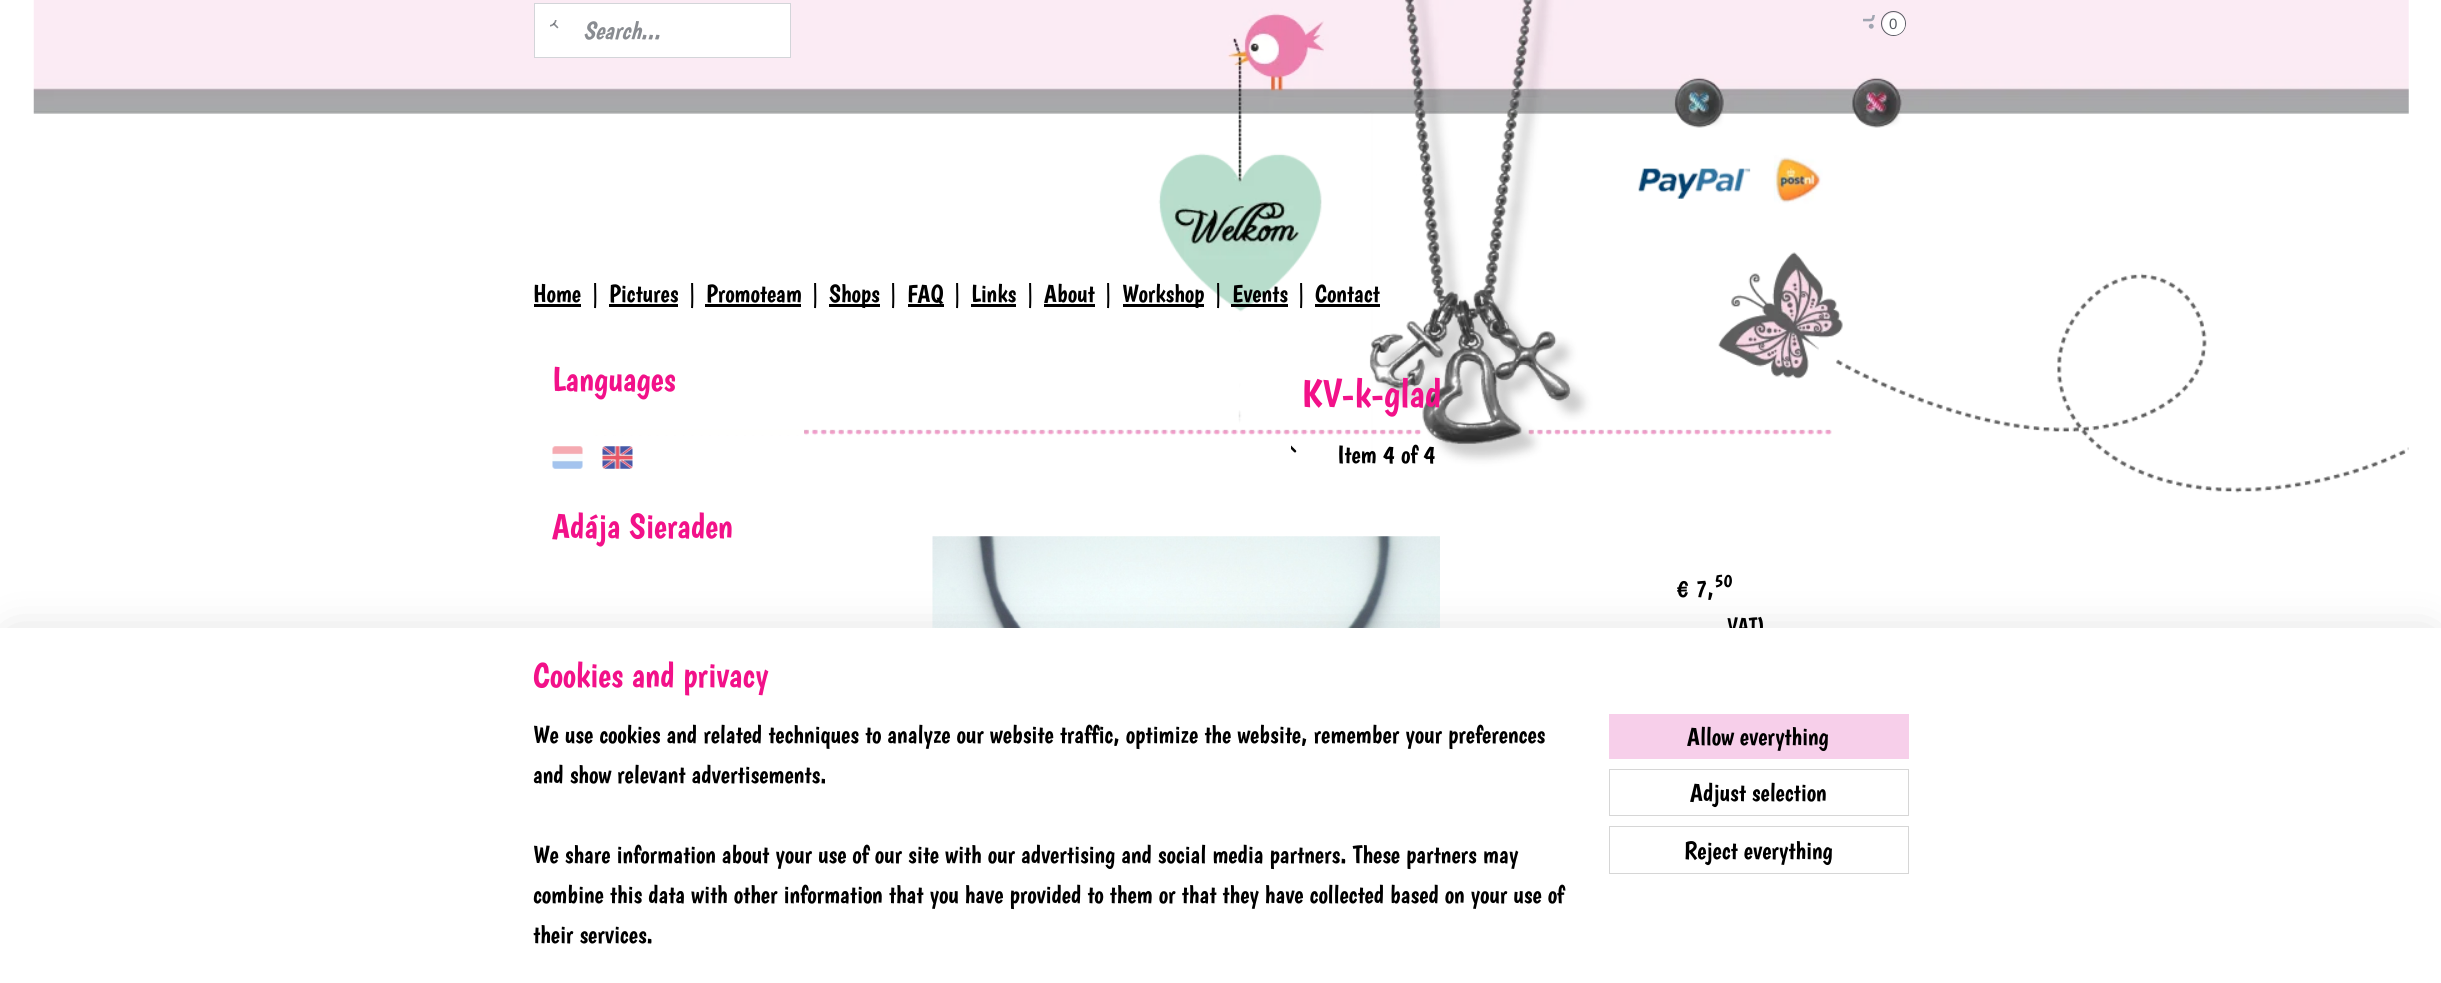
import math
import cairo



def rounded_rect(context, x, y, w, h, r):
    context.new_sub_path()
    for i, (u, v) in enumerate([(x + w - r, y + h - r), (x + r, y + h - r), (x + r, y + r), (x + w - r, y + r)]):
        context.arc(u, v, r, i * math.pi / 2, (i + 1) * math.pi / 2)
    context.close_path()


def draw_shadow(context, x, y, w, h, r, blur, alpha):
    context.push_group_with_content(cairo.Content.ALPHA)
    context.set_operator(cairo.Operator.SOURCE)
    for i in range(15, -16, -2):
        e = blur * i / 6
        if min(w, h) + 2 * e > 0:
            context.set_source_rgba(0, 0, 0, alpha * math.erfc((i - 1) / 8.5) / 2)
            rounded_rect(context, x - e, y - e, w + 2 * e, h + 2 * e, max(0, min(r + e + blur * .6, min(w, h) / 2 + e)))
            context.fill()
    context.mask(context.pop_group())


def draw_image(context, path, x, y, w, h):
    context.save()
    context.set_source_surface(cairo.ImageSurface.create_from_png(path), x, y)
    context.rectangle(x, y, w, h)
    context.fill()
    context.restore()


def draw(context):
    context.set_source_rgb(1, 1, 1)
    context.paint()
    draw_image(context, "images/1.png", 33, 0, 2376, 493)
    context.set_source_rgb(1, 1, 1)
    context.rectangle(534.5, 3.5, 256, 54)
    context.fill_preserve()
    context.set_source_rgb(211 / 255, 213 / 255, 217 / 255)
    context.set_line_width(1)
    context.stroke()
    draw_image(context, "images/2.png", 550, 20, 9, 9)
    draw_image(context, "images/3.png", 1863, 15, 12, 14)
    context.arc(1893.5, 23.5, 12, 0, 2 * math.pi)
    context.set_source_rgb(87 / 255, 91 / 255, 98 / 255)
    context.stroke()
    context.set_source_rgb(1, 1, 1)
    context.arc(1894, 24, 11, 0, 2 * math.pi)
    context.fill()
    context.set_source_rgb(0, 0, 0)
    context.rectangle(534, 304, 47, 3)
    context.fill()
    context.rectangle(609, 304, 69, 3)
    context.fill()
    context.rectangle(705, 304, 96, 3)
    context.fill()
    context.rectangle(829, 304, 51, 3)
    context.fill()
    context.rectangle(908, 304, 36, 3)
    context.fill()
    context.rectangle(971, 304, 45, 3)
    context.fill()
    context.rectangle(1044, 304, 51, 3)
    context.fill()
    context.rectangle(1123, 304, 81, 3)
    context.fill()
    context.rectangle(1231, 304, 57, 3)
    context.fill()
    context.rectangle(1315, 304, 65, 3)
    context.fill()
    context.set_source_rgb(1, 1, 254 / 255)
    context.rectangle(593, 429, 211, 6)
    context.fill()
    draw_image(context, "images/4.png", 552, 446, 31, 23)
    draw_image(context, "images/5.png", 602, 446, 31, 23)
    draw_image(context, "images/6.png", 1291, 445, 6, 8)
    draw_image(context, "images/7.png", 932, 536, 508, 92)
    context.set_source_rgb(0, 0, 0)
    draw_shadow(context, 13, 640, 2416, 331, 0, 22.5, 0.2)
    context.select_font_face("Boogaloo", cairo.FontSlant.ITALIC)
    context.set_font_size(25)
    context.set_source_rgb(137 / 255, 140 / 255, 145 / 255)
    context.move_to(583, 39)
    context.show_text("Search...")
    context.select_font_face("Liberation Sans")
    context.set_font_size(15)
    context.set_source_rgb(87 / 255, 91 / 255, 98 / 255)
    context.move_to(1889, 29)
    context.show_text("0")
    context.select_font_face("Boogaloo")
    context.set_font_size(25)
    context.set_source_rgb(0, 0, 0)
    context.move_to(533, 302)
    context.show_text("Home")
    context.move_to(589, 302)
    context.show_text("|")
    context.move_to(609, 302)
    context.show_text("Pictures")
    context.move_to(686, 302)
    context.show_text("|")
    context.move_to(706, 302)
    context.show_text("Promoteam")
    context.move_to(809, 302)
    context.show_text("|")
    context.move_to(829, 302)
    context.show_text("Shops")
    context.move_to(887, 302)
    context.show_text("|")
    context.move_to(907, 302)
    context.show_text("FAQ")
    context.move_to(951, 302)
    context.show_text("|")
    context.move_to(971, 302)
    context.show_text("Links")
    context.move_to(1024, 302)
    context.show_text("|")
    context.move_to(1044, 302)
    context.show_text("About")
    context.move_to(1102, 302)
    context.show_text("|")
    context.move_to(1122, 302)
    context.show_text("Workshop")
    context.move_to(1212, 302)
    context.show_text("|")
    context.move_to(1232, 302)
    context.show_text("Events")
    context.move_to(1295, 302)
    context.show_text("|")
    context.move_to(1315, 302)
    context.show_text("Contact")
    context.set_font_size(35)
    context.set_source_rgb(242 / 255, 17 / 255, 137 / 255)
    context.move_to(552, 391)
    context.show_text("Languages")
    context.move_to(552, 538)
    context.show_text("Adája Sieraden")
    context.set_font_size(40)
    context.move_to(1302, 407)
    context.show_text("KV-k-glad")
    context.set_font_size(25)
    context.set_source_rgb(0, 0, 0)
    context.move_to(1337, 463)
    context.show_text("Item 4 of 4")
    context.move_to(1677, 597)
    context.show_text("€ 7,")
    context.set_font_size(19)
    context.move_to(1714, 587)
    context.show_text("50")
    context.set_font_size(22)
    context.move_to(1727, 633)
    context.show_text("VAT)")
    context.set_source_rgb(1, 1, 1)
    context.rectangle(0, 628, 2441, 355)
    context.fill()
    context.set_font_size(35)
    context.set_source_rgb(242 / 255, 17 / 255, 137 / 255)
    context.move_to(533, 687)
    context.show_text("Cookies and privacy")
    context.set_font_size(25)
    context.set_source_rgb(0, 0, 0)
    context.move_to(533, 743)
    context.show_text("We use cookies and related techniques to analyze our website traffic, optimize the website, remember your preferences")
    context.move_to(533, 783)
    context.show_text("and show relevant advertisements.")
    context.move_to(533, 863)
    context.show_text("We share information about your use of our site with our advertising and social media partners. These partners may")
    context.move_to(533, 903)
    context.show_text("combine this data with other information that you have provided to them or that they have collected based on your use of")
    context.move_to(533, 943)
    context.show_text("their services.")
    context.set_source_rgb(247 / 255, 207 / 255, 234 / 255)
    context.rectangle(1609, 714, 300, 45)
    context.fill()
    context.set_source_rgb(0, 0, 0)
    context.move_to(1687, 745)
    context.show_text("Allow everything")
    context.rectangle(1609.5, 769.5, 299, 46)
    context.set_source_rgb(214 / 255, 214 / 255, 214 / 255)
    context.stroke()
    context.set_source_rgb(0, 0, 0)
    context.move_to(1690, 801)
    context.show_text("Adjust selection")
    context.rectangle(1609.5, 826.5, 299, 47)
    context.set_source_rgb(214 / 255, 214 / 255, 214 / 255)
    context.stroke()
    context.set_source_rgb(0, 0, 0)
    context.move_to(1684, 859)
    context.show_text("Reject everything")


surface = cairo.ImageSurface(cairo.Format.RGB24, 2441, 983)
context = cairo.Context(surface)
options = cairo.FontOptions()
options.set_hint_metrics(cairo.HintMetrics.OFF)
options.set_hint_style(cairo.HintStyle.NONE)
context.set_font_options(options)
context.set_miter_limit(4)
draw(context)
surface.write_to_png("out.png")
